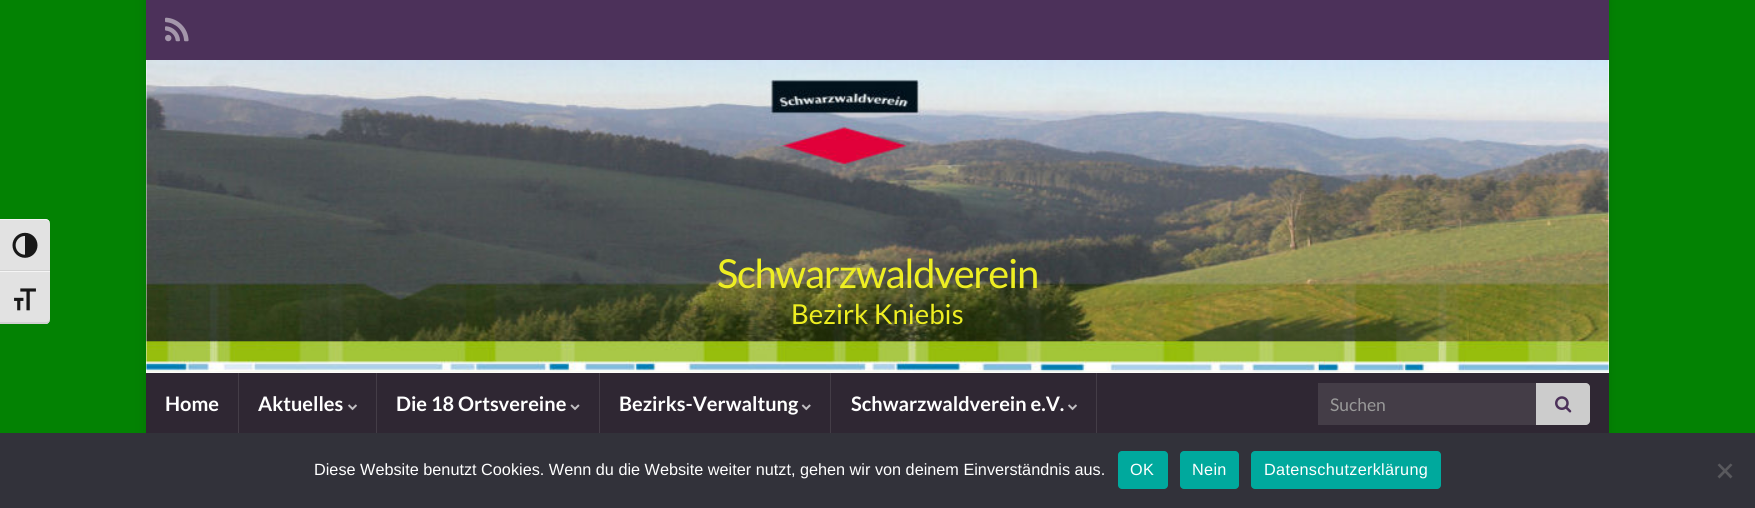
import math
import cairo



def draw_spaced(context, x, y, s, letter, word):
    context.move_to(x, y)
    for ch in s:
        context.show_text(ch)
        context.rel_move_to(letter + word * (ch == ' '), 0)


def rounded_rect(context, x, y, w, h, r):
    context.new_sub_path()
    for i, (u, v) in enumerate([(x + w - r, y + h - r), (x + r, y + h - r), (x + r, y + r), (x + w - r, y + r)]):
        context.arc(u, v, r, i * math.pi / 2, (i + 1) * math.pi / 2)
    context.close_path()


def draw_shadow(context, x, y, w, h, r, blur, alpha):
    context.push_group_with_content(cairo.Content.ALPHA)
    context.set_operator(cairo.Operator.SOURCE)
    for i in range(15, -16, -2):
        e = blur * i / 6
        if min(w, h) + 2 * e > 0:
            context.set_source_rgba(0, 0, 0, alpha * math.erfc((i - 1) / 8.5) / 2)
            rounded_rect(context, x - e, y - e, w + 2 * e, h + 2 * e, max(0, min(r + e + blur * .6, min(w, h) / 2 + e)))
            context.fill()
    context.mask(context.pop_group())


def draw_image(context, path, x, y, w, h):
    context.save()
    context.set_source_surface(cairo.ImageSurface.create_from_png(path), x, y)
    context.rectangle(x, y, w, h)
    context.fill()
    context.restore()


def draw(context):
    context.set_source_rgb(3 / 255, 130 / 255, 3 / 255)
    context.paint()
    context.set_source_rgb(226 / 255, 226 / 255, 226 / 255)
    context.new_path()
    context.move_to(0, 219)
    context.line_to(45, 219)
    context.curve_to(48, 219, 50, 221, 50, 224)
    context.line_to(50, 271)
    context.line_to(0, 271)
    context.close_path()
    context.fill()
    context.set_source_rgb(245 / 255, 245 / 255, 245 / 255)
    context.new_path()
    context.move_to(0, 220)
    context.line_to(45, 220)
    context.curve_to(48, 220, 50, 222, 50, 224)
    context.curve_to(50, 221, 48, 219, 45, 219)
    context.line_to(0, 219)
    context.close_path()
    context.fill()
    context.set_source_rgb(210 / 255, 210 / 255, 210 / 255)
    context.rectangle(0, 270, 50, 1)
    context.fill()
    draw_image(context, "images/1.png", 12, 232, 26, 26)
    context.set_source_rgb(226 / 255, 226 / 255, 226 / 255)
    context.new_path()
    context.move_to(0, 271)
    context.line_to(50, 271)
    context.line_to(50, 319)
    context.curve_to(50, 322, 48, 324, 45, 324)
    context.line_to(0, 324)
    context.close_path()
    context.fill()
    context.set_source_rgb(245 / 255, 245 / 255, 245 / 255)
    context.rectangle(0, 271, 50, 1)
    context.fill()
    context.set_source_rgb(210 / 255, 210 / 255, 210 / 255)
    context.new_path()
    context.move_to(47, 324)
    context.curve_to(49, 323, 50, 321, 50, 319)
    context.curve_to(50, 321, 48, 322, 45, 322)
    context.line_to(0, 322)
    context.line_to(0, 324)
    context.close_path()
    context.fill()
    draw_image(context, "images/2.png", 14, 288, 22, 23)
    context.set_source_rgb(0, 0, 0)
    draw_shadow(context, 146, 0, 1463, 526, 0, 6, 0.1)
    context.set_source_rgb(76 / 255, 49 / 255, 90 / 255)
    context.rectangle(146, 0, 1463, 60)
    context.fill()
    draw_image(context, "images/3.png", 165, 17, 24, 25)
    context.set_source_rgb(1, 1, 1)
    context.rectangle(146, 60, 1463, 313)
    context.fill()
    draw_image(context, "images/4.png", 146, 60, 1463, 313)
    context.set_source_rgb(47 / 255, 39 / 255, 51 / 255)
    context.rectangle(146, 373, 1463, 60)
    context.fill()
    context.set_source_rgb(68 / 255, 61 / 255, 71 / 255)
    context.rectangle(238, 373, 1, 62)
    context.fill()
    context.rectangle(376, 373, 1, 62)
    context.fill()
    draw_image(context, "images/5.png", 348, 404, 9, 7)
    context.rectangle(599, 373, 1, 62)
    context.fill()
    draw_image(context, "images/6.png", 570, 404, 10, 7)
    context.rectangle(830, 373, 1, 62)
    context.fill()
    draw_image(context, "images/7.png", 801, 404, 10, 7)
    context.rectangle(1096, 373, 1, 62)
    context.fill()
    draw_image(context, "images/5.png", 1068, 404, 9, 7)
    context.rectangle(1318, 383, 218, 42)
    context.fill()
    context.set_source_rgb(204 / 255, 204 / 255, 204 / 255)
    context.new_path()
    context.move_to(1536, 383)
    context.line_to(1586, 383)
    context.curve_to(1588, 383, 1590, 385, 1590, 387)
    context.line_to(1590, 421)
    context.curve_to(1590, 423, 1588, 425, 1586, 425)
    context.line_to(1536, 425)
    context.close_path()
    context.fill()
    draw_image(context, "images/8.png", 1555, 396, 17, 17)
    context.set_source_rgb(50 / 255, 50 / 255, 58 / 255)
    context.rectangle(0, 433, 1755, 75)
    context.fill()
    context.set_source_rgb(0, 169 / 255, 157 / 255)
    rounded_rect(context, 1118, 451, 50, 38, 4)
    context.fill()
    rounded_rect(context, 1180, 451, 59, 38, 4)
    context.fill()
    rounded_rect(context, 1251, 451, 190, 38, 4)
    context.fill()
    context.set_source_rgb(89 / 255, 89 / 255, 93 / 255)
    context.new_path()
    context.move_to(1730.5, 463.5)
    context.line_to(1732.5, 465)
    context.line_to(1719.5, 478.5)
    context.line_to(1717.5, 476.5)
    context.close_path()
    context.fill()
    context.new_path()
    context.move_to(1717.5, 465)
    context.line_to(1719.5, 463.5)
    context.line_to(1732.5, 476.5)
    context.line_to(1730.5, 478.5)
    context.close_path()
    context.fill()
    context.select_font_face("Lato")
    context.set_font_size(40)
    context.set_source_rgb(238 / 255, 238 / 255, 34 / 255)
    draw_spaced(context, 717, 288, "Schwarzwaldverein", -1.25, 0)
    context.set_font_size(27.5)
    context.move_to(791, 324)
    context.show_text("Bezirk Kniebis")
    context.select_font_face("Lato", cairo.FontSlant.NORMAL, cairo.FontWeight.BOLD)
    context.set_font_size(20)
    context.set_source_rgb(1, 1, 1)
    context.move_to(165, 411)
    context.show_text("Home")
    context.move_to(258, 411)
    context.show_text("Aktuelles")
    context.move_to(396, 411)
    context.show_text("Die 18 Ortsvereine")
    context.move_to(619, 411)
    context.show_text("Bezirks-Verwaltung")
    context.move_to(851, 411)
    context.show_text("Schwarzwaldverein e.V.")
    context.select_font_face("Lato")
    context.set_font_size(17.5)
    context.set_source_rgb(153 / 255, 153 / 255, 153 / 255)
    context.move_to(1330, 411)
    context.show_text("Suchen")
    context.select_font_face("Liberation Sans")
    context.set_font_size(16.25)
    context.set_source_rgb(1, 1, 1)
    context.move_to(314, 475)
    context.show_text("Diese Website benutzt Cookies. Wenn du die Website weiter nutzt, gehen wir von deinem Einverständnis aus.")
    draw_spaced(context, 1130, 475, "OK", 0.3, 0)
    draw_spaced(context, 1192, 475, "Nein", 0.3, 0)
    draw_spaced(context, 1264, 475, "Datenschutzerklärung", 0.3, 0)


surface = cairo.ImageSurface(cairo.Format.RGB24, 1755, 508)
context = cairo.Context(surface)
options = cairo.FontOptions()
options.set_hint_metrics(cairo.HintMetrics.OFF)
options.set_hint_style(cairo.HintStyle.NONE)
context.set_font_options(options)
context.set_miter_limit(4)
draw(context)
surface.write_to_png("out.png")
